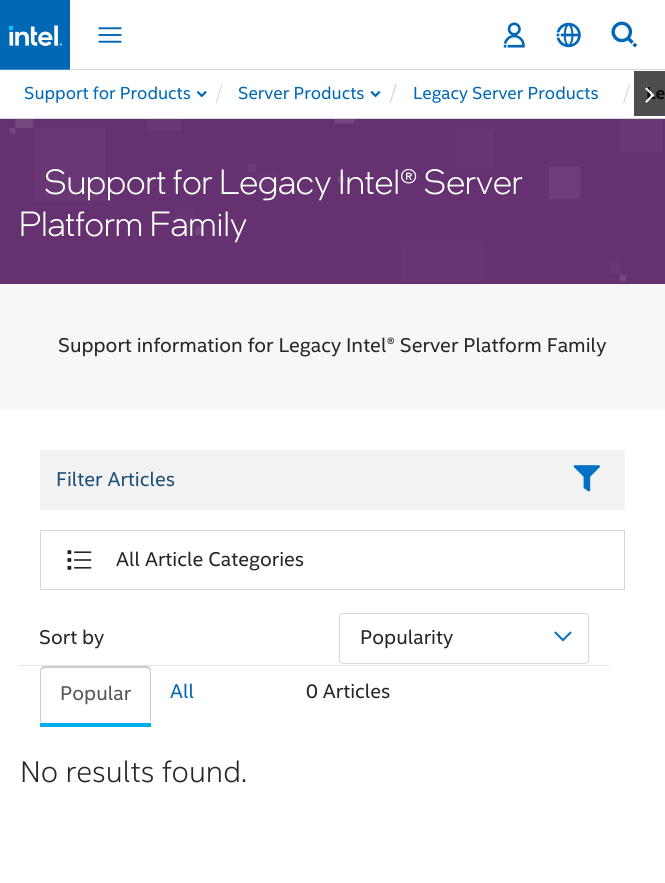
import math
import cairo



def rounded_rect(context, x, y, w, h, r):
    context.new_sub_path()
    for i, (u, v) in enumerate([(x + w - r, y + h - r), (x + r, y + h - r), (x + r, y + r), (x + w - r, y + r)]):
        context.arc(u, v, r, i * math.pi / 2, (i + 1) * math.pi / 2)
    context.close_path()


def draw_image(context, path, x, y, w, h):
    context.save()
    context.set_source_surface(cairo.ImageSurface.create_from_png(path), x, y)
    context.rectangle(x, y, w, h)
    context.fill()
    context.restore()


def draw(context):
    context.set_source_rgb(1, 1, 1)
    context.paint()
    context.set_source_rgb(77 / 255, 77 / 255, 77 / 255)
    context.rectangle(634, 71, 31, 45)
    context.fill()
    context.set_source_rgb(215 / 255, 215 / 255, 215 / 255)
    context.rectangle(70, 69, 595, 1)
    context.fill()
    context.set_source_rgb(0, 104 / 255, 181 / 255)
    context.rectangle(0, 0, 70, 69)
    context.fill()
    draw_image(context, "images/1.png", 9, 25, 54, 21)
    context.set_source_rgb(66 / 255, 144 / 255, 203 / 255)
    context.rectangle(0, 69, 70, 1)
    context.fill()
    draw_image(context, "images/2.png", 98, 27, 24, 16)
    draw_image(context, "images/3.png", 503, 22, 22, 26)
    draw_image(context, "images/4.png", 556, 22, 25, 26)
    draw_image(context, "images/5.png", 611, 21, 27, 27)
    context.set_source_rgb(215 / 255, 215 / 255, 215 / 255)
    context.rectangle(0, 118, 665, 1)
    context.fill()
    draw_image(context, "images/6.png", 196, 91, 11, 7)
    context.new_path()
    context.move_to(221.5, 84)
    context.line_to(222.5, 84.5)
    context.line_to(216.5, 103.5)
    context.line_to(215.5, 103)
    context.close_path()
    context.fill()
    draw_image(context, "images/7.png", 370, 91, 11, 7)
    context.new_path()
    context.move_to(395.5, 84)
    context.line_to(397, 84.5)
    context.line_to(390.5, 103.5)
    context.line_to(389.5, 103)
    context.close_path()
    context.fill()
    context.new_path()
    context.move_to(629, 84)
    context.line_to(630, 84.5)
    context.line_to(624, 103.5)
    context.line_to(623, 103)
    context.close_path()
    context.fill()
    context.set_source_rgb(247 / 255, 247 / 255, 247 / 255)
    context.rectangle(0, 284, 665, 126)
    context.fill()
    context.set_source_rgb(101 / 255, 49 / 255, 113 / 255)
    context.rectangle(0, 119, 665, 165)
    context.fill()
    draw_image(context, "images/9.png", 9, 119, 653, 162)
    context.set_source_rgb(242 / 255, 242 / 255, 242 / 255)
    context.rectangle(40, 450, 585, 60)
    context.fill()
    draw_image(context, "images/10.png", 573, 465, 27, 27)
    context.rectangle(40.5, 530.5, 584, 59)
    context.set_source_rgb(215 / 255, 215 / 255, 215 / 255)
    context.set_line_width(1)
    context.stroke()
    draw_image(context, "images/11.png", 67, 550, 25, 20)
    context.set_source_rgb(204 / 255, 204 / 255, 204 / 255)
    context.new_path()
    context.move_to(45, 668)
    context.line_to(42, 669)
    context.line_to(41, 668)
    context.line_to(43, 666)
    context.line_to(130, 666)
    context.curve_to(137, 666, 146, 663, 150, 668)
    context.line_to(149, 669)
    context.line_to(146, 668)
    context.close_path()
    context.fill()
    context.set_source_rgb(228 / 255, 228 / 255, 228 / 255)
    context.rectangle(19, 665, 590, 1)
    context.fill()
    rounded_rect(context, 339.5, 613.5, 249, 50, 3.5)
    context.set_source_rgb(215 / 255, 215 / 255, 215 / 255)
    context.stroke()
    draw_image(context, "images/12.png", 554, 631, 18, 11)
    context.set_source_rgb(0, 174 / 255, 239 / 255)
    context.rectangle(40, 723, 111, 4)
    context.fill()
    context.set_source_rgb(204 / 255, 204 / 255, 204 / 255)
    context.new_path()
    context.move_to(150, 668)
    context.curve_to(151, 668, 151, 670, 151, 671)
    context.line_to(151, 722)
    context.line_to(150, 721)
    context.line_to(150, 670)
    context.line_to(149, 669)
    context.close_path()
    context.fill()
    context.new_path()
    context.move_to(40, 671)
    context.line_to(40, 722)
    context.line_to(42, 721)
    context.line_to(41, 721)
    context.line_to(41, 670)
    context.line_to(42, 669)
    context.line_to(41, 668)
    context.curve_to(40, 668, 40, 670, 40, 671)
    context.close_path()
    context.fill()
    context.select_font_face("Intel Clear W")
    context.set_font_size(17.5)
    context.set_source_rgb(0, 104 / 255, 181 / 255)
    context.move_to(24, 99)
    context.show_text("Support for Products")
    context.move_to(238, 99)
    context.show_text("Server Products")
    context.move_to(413, 99)
    context.show_text("Legacy Server Products")
    context.select_font_face("Intel Clear W", cairo.FontSlant.NORMAL, cairo.FontWeight.BOLD)
    context.set_source_rgb(11 / 255, 11 / 255, 11 / 255)
    context.move_to(646, 99)
    context.show_text("Le")
    draw_image(context, "images/8.png", 645, 87, 10, 16)
    context.select_font_face("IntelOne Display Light")
    context.set_font_size(35)
    context.set_source_rgb(1, 1, 1)
    context.move_to(44, 194)
    context.show_text("Support for Legacy Intel® Server")
    context.move_to(19, 236)
    context.show_text("Platform Family")
    context.select_font_face("Intel Clear W")
    context.set_font_size(20)
    context.set_source_rgb(38 / 255, 38 / 255, 38 / 255)
    context.move_to(58, 352)
    context.show_text("Support information for Legacy Intel® Server Platform Family")
    context.set_source_rgb(29 / 255, 79 / 255, 118 / 255)
    context.move_to(56, 486)
    context.show_text("Filter Articles")
    context.set_source_rgb(38 / 255, 38 / 255, 38 / 255)
    context.move_to(116, 566)
    context.show_text("All Article Categories")
    context.move_to(39, 644)
    context.show_text("Sort by")
    context.move_to(360, 644)
    context.show_text("Popularity")
    context.set_source_rgb(85 / 255, 85 / 255, 85 / 255)
    context.move_to(60, 700)
    context.show_text("Popular")
    context.set_source_rgb(0, 104 / 255, 181 / 255)
    context.move_to(170, 698)
    context.show_text("All")
    context.set_source_rgb(38 / 255, 38 / 255, 38 / 255)
    context.move_to(306, 698)
    context.show_text("0 Articles")
    context.select_font_face("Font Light")
    context.set_font_size(30)
    context.move_to(20, 782)
    context.show_text("No results found.")


surface = cairo.ImageSurface(cairo.Format.RGB24, 665, 883)
context = cairo.Context(surface)
options = cairo.FontOptions()
options.set_hint_metrics(cairo.HintMetrics.OFF)
options.set_hint_style(cairo.HintStyle.NONE)
context.set_font_options(options)
context.set_miter_limit(4)
draw(context)
surface.write_to_png("out.png")
